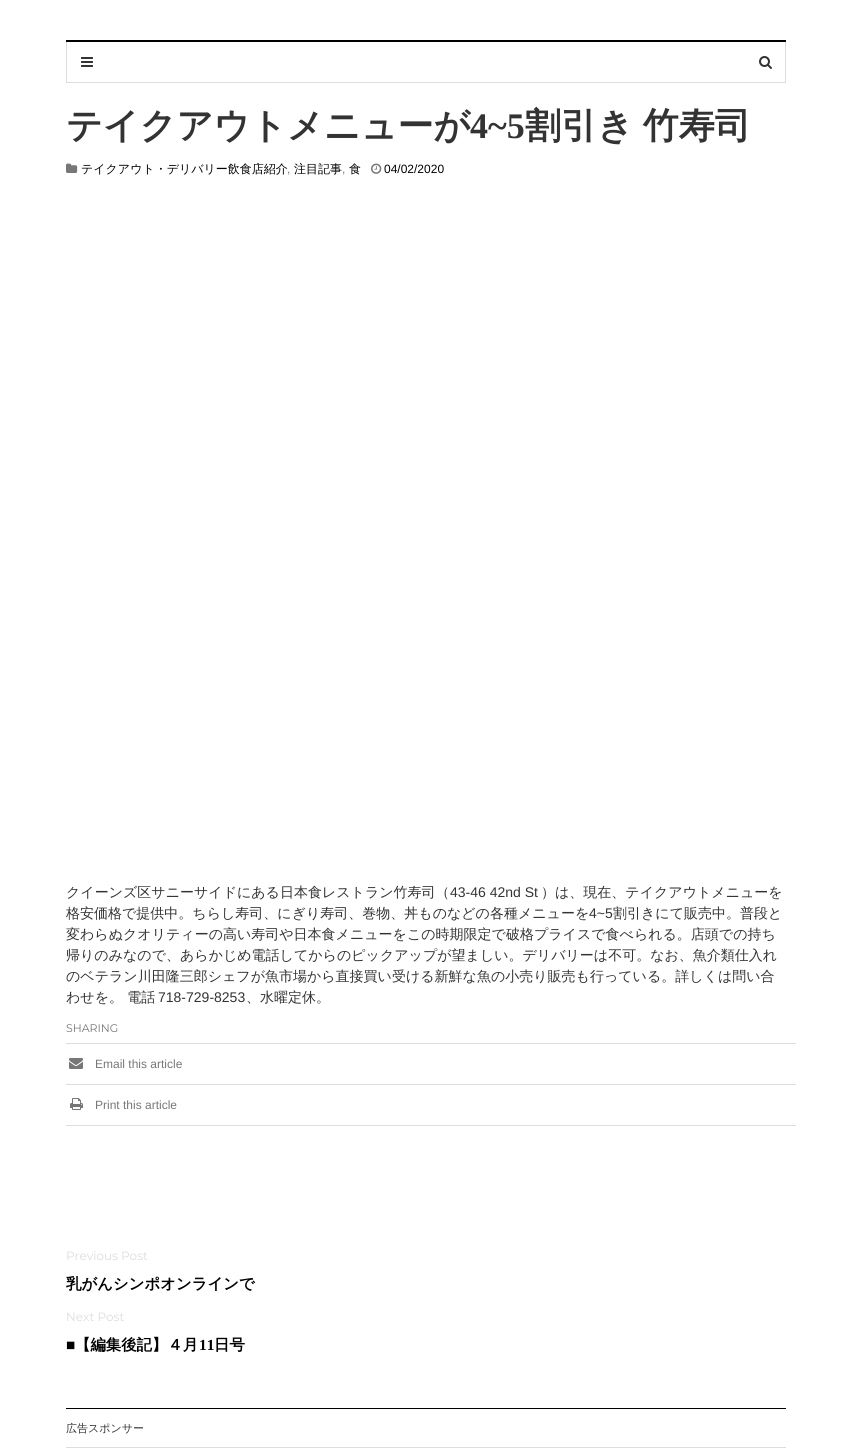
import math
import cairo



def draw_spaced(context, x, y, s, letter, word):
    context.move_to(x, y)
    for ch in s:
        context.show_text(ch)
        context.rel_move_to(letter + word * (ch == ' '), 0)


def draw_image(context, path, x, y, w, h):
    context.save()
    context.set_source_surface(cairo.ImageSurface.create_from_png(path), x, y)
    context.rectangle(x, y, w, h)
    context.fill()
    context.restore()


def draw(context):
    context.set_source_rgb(1, 1, 1)
    context.paint()
    context.set_source_rgb(0, 0, 0)
    context.rectangle(66, 40, 720, 2)
    context.fill()
    context.set_source_rgb(221 / 255, 221 / 255, 221 / 255)
    context.rectangle(785, 42, 1, 41)
    context.fill()
    context.rectangle(66, 82, 720, 1)
    context.fill()
    context.rectangle(66, 42, 1, 41)
    context.fill()
    draw_image(context, "images/1.png", 81, 57, 12, 10)
    draw_image(context, "images/2.png", 759, 56, 13, 13)
    draw_image(context, "images/3.png", 66, 163, 12, 10)
    draw_image(context, "images/4.png", 371, 163, 11, 11)
    context.rectangle(66, 1043, 730, 1)
    context.fill()
    draw_image(context, "images/5.png", 69, 1058, 14, 11)
    context.rectangle(66, 1084, 730, 1)
    context.fill()
    context.rectangle(66, 1125, 730, 1)
    context.fill()
    draw_image(context, "images/6.png", 70, 1098, 13, 12)
    context.set_source_rgb(0, 0, 0)
    context.rectangle(66, 1408, 720, 1)
    context.fill()
    context.set_source_rgb(221 / 255, 221 / 255, 221 / 255)
    context.rectangle(66, 1447, 720, 1)
    context.fill()
    context.select_font_face("WenQuanYi Zen Hei", cairo.FontSlant.NORMAL, cairo.FontWeight.BOLD)
    context.set_font_size(36)
    context.set_source_rgb(51 / 255, 51 / 255, 51 / 255)
    context.move_to(66, 138)
    context.show_text("テイクアウトメニューが")
    context.select_font_face("Liberation Serif", cairo.FontSlant.NORMAL, cairo.FontWeight.BOLD)
    context.move_to(470, 138)
    context.show_text("4~5")
    context.select_font_face("WenQuanYi Zen Hei", cairo.FontSlant.NORMAL, cairo.FontWeight.BOLD)
    draw_spaced(context, 525, 138, "割引き 竹寿司", 0, -2)
    context.select_font_face("WenQuanYi Zen Hei Medium")
    context.set_font_size(12)
    context.set_source_rgb(0, 0, 0)
    context.move_to(81, 173)
    context.show_text("テイクアウト・デリバリー飲食店紹介")
    context.select_font_face("Liberation Sans")
    context.set_source_rgb(119 / 255, 119 / 255, 119 / 255)
    context.move_to(287, 173)
    context.show_text(",")
    context.select_font_face("WenQuanYi Zen Hei Medium")
    context.set_source_rgb(0, 0, 0)
    context.move_to(294, 173)
    context.show_text("注目記事")
    context.select_font_face("Liberation Sans")
    context.set_source_rgb(119 / 255, 119 / 255, 119 / 255)
    context.move_to(342, 173)
    context.show_text(",")
    context.select_font_face("WenQuanYi Zen Hei Medium")
    context.set_source_rgb(0, 0, 0)
    context.move_to(349, 173)
    context.show_text("食")
    context.select_font_face("Liberation Sans")
    context.move_to(384, 173)
    context.show_text("04/02/2020")
    context.select_font_face("WenQuanYi Zen Hei Medium")
    context.set_font_size(14)
    context.set_source_rgb(51 / 255, 51 / 255, 51 / 255)
    context.move_to(66, 897)
    context.show_text("クイーンズ区サニーサイドにある日本食レストラン竹寿司（")
    context.select_font_face("Liberation Sans")
    context.move_to(450, 897)
    context.show_text("43-46 42nd St")
    context.select_font_face("WenQuanYi Zen Hei Medium")
    context.move_to(541, 897)
    context.show_text("）は、現在、テイクアウトメニューを")
    context.move_to(66, 918)
    context.show_text("格安価格で提供中。ちらし寿司、にぎり寿司、巻物、丼ものなどの各種メニューを")
    context.select_font_face("Liberation Sans")
    context.move_to(589, 918)
    context.show_text("4~5")
    context.select_font_face("WenQuanYi Zen Hei Medium")
    context.move_to(613, 918)
    context.show_text("割引きにて販売中。普段と")
    context.move_to(66, 939)
    context.show_text("変わらぬクオリティーの高い寿司や日本食メニューをこの時期限定で破格プライスで食べられる。店頭での持ち")
    context.move_to(66, 960)
    context.show_text("帰りのみなので、あらかじめ電話してからのピックアップが望ましい。デリバリーは不可。なお、魚介類仕入れ")
    context.move_to(66, 981)
    context.show_text("のベテラン川田隆三郎シェフが魚市場から直接買い受ける新鮮な魚の小売り販売も行っている。詳しくは問い合")
    context.move_to(66, 1002)
    context.show_text("わせを。 電話")
    context.select_font_face("Liberation Sans")
    context.move_to(158, 1002)
    context.show_text("718-729-8253")
    context.select_font_face("WenQuanYi Zen Hei Medium")
    context.move_to(246, 1002)
    context.show_text("、水曜定休。")
    context.select_font_face("Montserrat")
    context.set_font_size(11)
    context.set_source_rgb(119 / 255, 119 / 255, 119 / 255)
    context.move_to(66, 1032)
    context.show_text("SHARING")
    context.select_font_face("Liberation Sans")
    context.set_font_size(12)
    context.move_to(95, 1068)
    context.show_text("Email this article")
    context.move_to(95, 1109)
    context.show_text("Print this article")
    context.select_font_face("Montserrat")
    context.set_source_rgb(221 / 255, 221 / 255, 221 / 255)
    context.move_to(66, 1260)
    context.show_text("Previous Post")
    context.select_font_face("WenQuanYi Zen Hei", cairo.FontSlant.NORMAL, cairo.FontWeight.BOLD)
    context.set_font_size(15.4)
    context.set_source_rgb(0, 0, 0)
    context.move_to(66, 1289)
    context.show_text("乳がんシンポオンラインで")
    context.select_font_face("Montserrat")
    context.set_font_size(12)
    context.set_source_rgb(221 / 255, 221 / 255, 221 / 255)
    context.move_to(66, 1321)
    context.show_text("Next Post")
    context.select_font_face("Liberation Serif", cairo.FontSlant.NORMAL, cairo.FontWeight.BOLD)
    context.set_font_size(15.4)
    context.set_source_rgb(0, 0, 0)
    context.move_to(66, 1350)
    context.show_text("■")
    context.select_font_face("WenQuanYi Zen Hei", cairo.FontSlant.NORMAL, cairo.FontWeight.BOLD)
    context.move_to(75, 1350)
    context.show_text("【編集後記】４月")
    context.select_font_face("Liberation Serif", cairo.FontSlant.NORMAL, cairo.FontWeight.BOLD)
    context.move_to(199, 1350)
    context.show_text("11")
    context.select_font_face("WenQuanYi Zen Hei", cairo.FontSlant.NORMAL, cairo.FontWeight.BOLD)
    context.move_to(214, 1350)
    context.show_text("日号")
    context.select_font_face("WenQuanYi Zen Hei Medium")
    context.set_font_size(11)
    context.set_source_rgb(51 / 255, 51 / 255, 51 / 255)
    context.move_to(66, 1432)
    context.show_text("広告スポンサー")


surface = cairo.ImageSurface(cairo.Format.RGB24, 852, 1452)
context = cairo.Context(surface)
options = cairo.FontOptions()
options.set_hint_metrics(cairo.HintMetrics.OFF)
options.set_hint_style(cairo.HintStyle.NONE)
context.set_font_options(options)
context.set_miter_limit(4)
draw(context)
surface.write_to_png("out.png")
